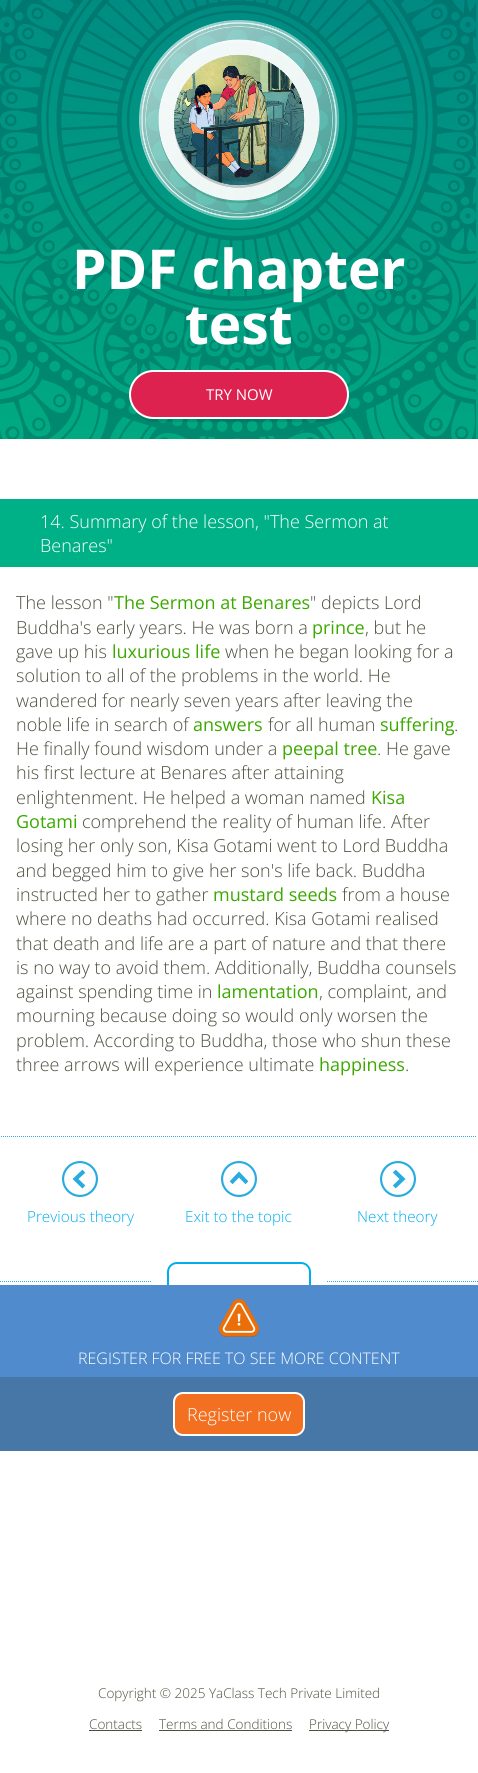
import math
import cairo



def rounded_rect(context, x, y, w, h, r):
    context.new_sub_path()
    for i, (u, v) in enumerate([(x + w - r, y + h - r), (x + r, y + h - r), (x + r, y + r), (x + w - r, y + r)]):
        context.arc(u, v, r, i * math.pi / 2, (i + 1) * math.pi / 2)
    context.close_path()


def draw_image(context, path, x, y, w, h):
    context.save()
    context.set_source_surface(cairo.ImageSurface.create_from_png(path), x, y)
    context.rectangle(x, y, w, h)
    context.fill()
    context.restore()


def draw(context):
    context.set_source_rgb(1, 1, 1)
    context.paint()
    gradient = cairo.LinearGradient(209, 465, 269, -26)
    gradient.add_color_stop_rgba(0, 0, 170 / 255, 129 / 255, 1)
    gradient.add_color_stop_rgba(1, 0, 137 / 255, 130 / 255, 1)
    context.set_source(gradient)
    context.rectangle(0, 0, 478, 439)
    context.fill()
    draw_image(context, "images/1.png", 0, 0, 476, 439)
    draw_image(context, "images/2.png", 139, 20, 200, 200)
    context.set_source_rgba(0, 0, 0, 0.1)
    context.new_path()
    context.move_to(137, 412)
    context.curve_to(140, 418, 146, 422, 154, 422)
    context.line_to(324, 422)
    context.curve_to(332, 422, 338, 418, 341, 412)
    context.curve_to(337, 416, 331, 419, 324, 419)
    context.line_to(154, 419)
    context.curve_to(147, 419, 141, 416, 137, 412)
    context.close_path()
    context.fill()
    context.set_source_rgb(222 / 255, 34 / 255, 80 / 255)
    rounded_rect(context, 130, 371, 218, 47, 23.5)
    context.fill_preserve()
    context.set_source_rgb(1, 1, 1)
    context.stroke()
    context.set_source_rgb(0, 177 / 255, 136 / 255)
    context.rectangle(0, 499, 478, 68)
    context.fill()
    context.new_path()
    context.move_to(1, 1136.5)
    context.line_to(477, 1136.5)
    context.set_source_rgb(41 / 255, 171 / 255, 224 / 255)
    context.set_line_width(1)
    context.set_dash([1, 1])
    context.stroke()
    draw_image(context, "images/3.png", 62, 1161, 36, 36)
    draw_image(context, "images/4.png", 221, 1161, 36, 36)
    draw_image(context, "images/5.png", 380, 1161, 36, 36)
    context.new_path()
    context.move_to(0, 1281.5)
    context.line_to(151, 1281.5)
    context.stroke()
    rounded_rect(context, 168, 1263, 142, 38, 9)
    context.set_source_rgb(0, 174 / 255, 239 / 255)
    context.set_line_width(2)
    context.set_dash([])
    context.stroke()
    context.new_path()
    context.move_to(327, 1281.5)
    context.line_to(478, 1281.5)
    context.set_source_rgb(41 / 255, 171 / 255, 224 / 255)
    context.set_line_width(1)
    context.set_dash([1, 1])
    context.stroke()
    context.set_source_rgb(80 / 255, 140 / 255, 205 / 255)
    context.rectangle(0, 1285, 478, 92)
    context.fill()
    draw_image(context, "images/6.png", 219, 1298, 40, 39)
    context.set_source_rgb(70 / 255, 119 / 255, 167 / 255)
    context.rectangle(0, 1377, 478, 74)
    context.fill()
    context.set_source_rgb(243 / 255, 112 / 255, 33 / 255)
    rounded_rect(context, 174, 1393, 130, 42, 9)
    context.fill_preserve()
    context.set_source_rgb(1, 1, 1)
    context.set_line_width(2)
    context.set_dash([])
    context.stroke()
    context.set_source_rgb(78 / 255, 78 / 255, 63 / 255)
    context.rectangle(89, 1730, 53, 1)
    context.fill()
    context.rectangle(159, 1730, 133, 1)
    context.fill()
    context.rectangle(309, 1730, 80, 1)
    context.fill()
    context.select_font_face("Open Sans", cairo.FontSlant.NORMAL, cairo.FontWeight.BOLD)
    context.set_font_size(55)
    context.set_source_rgb(1, 1, 1)
    context.move_to(72, 289)
    context.show_text("PDF chapter")
    context.move_to(185, 344)
    context.show_text("test")
    context.select_font_face("Open Sans")
    context.set_font_size(15)
    context.move_to(206, 400)
    context.show_text("TRY NOW")
    context.select_font_face("Open Sans Light")
    context.set_font_size(18)
    context.move_to(40, 528)
    context.show_text("14. Summary of the lesson, \"The Sermon at")
    context.move_to(40, 552)
    context.show_text("Benares\"")
    context.set_source_rgb(78 / 255, 78 / 255, 63 / 255)
    context.move_to(16, 609)
    context.show_text("The lesson \"")
    context.select_font_face("Open Sans")
    context.set_source_rgb(59 / 255, 169 / 255, 0)
    context.move_to(114, 609)
    context.show_text("The Sermon at Benares")
    context.select_font_face("Open Sans Light")
    context.set_source_rgb(78 / 255, 78 / 255, 63 / 255)
    context.move_to(310, 609)
    context.show_text("\" depicts Lord")
    context.move_to(16, 634)
    context.show_text("Buddha's early years. He was born a")
    context.select_font_face("Open Sans")
    context.set_source_rgb(59 / 255, 169 / 255, 0)
    context.move_to(312, 634)
    context.show_text("prince")
    context.select_font_face("Open Sans Light")
    context.set_source_rgb(78 / 255, 78 / 255, 63 / 255)
    context.move_to(365, 634)
    context.show_text(", but he")
    context.move_to(16, 658)
    context.show_text("gave up his")
    context.select_font_face("Open Sans")
    context.set_source_rgb(59 / 255, 169 / 255, 0)
    context.move_to(112, 658)
    context.show_text("luxurious life")
    context.select_font_face("Open Sans Light")
    context.set_source_rgb(78 / 255, 78 / 255, 63 / 255)
    context.move_to(225, 658)
    context.show_text("when he began looking for a")
    context.move_to(16, 682)
    context.show_text("solution to all of the problems in the world. He")
    context.move_to(16, 707)
    context.show_text("wandered for nearly seven years after leaving the")
    context.move_to(16, 731)
    context.show_text("noble life in search of")
    context.select_font_face("Open Sans")
    context.set_source_rgb(59 / 255, 169 / 255, 0)
    context.move_to(193, 731)
    context.show_text("answers")
    context.select_font_face("Open Sans Light")
    context.set_source_rgb(78 / 255, 78 / 255, 63 / 255)
    context.move_to(268, 731)
    context.show_text("for all human")
    context.select_font_face("Open Sans")
    context.set_source_rgb(59 / 255, 169 / 255, 0)
    context.move_to(380, 731)
    context.show_text("suffering")
    context.select_font_face("Open Sans Light")
    context.set_source_rgb(78 / 255, 78 / 255, 63 / 255)
    context.move_to(454, 731)
    context.show_text(".")
    context.move_to(16, 755)
    context.show_text("He finally found wisdom under a")
    context.select_font_face("Open Sans")
    context.set_source_rgb(59 / 255, 169 / 255, 0)
    context.move_to(282, 755)
    context.show_text("peepal tree")
    context.select_font_face("Open Sans Light")
    context.set_source_rgb(78 / 255, 78 / 255, 63 / 255)
    context.move_to(377, 755)
    context.show_text(". He gave")
    context.move_to(16, 779)
    context.show_text("his first lecture at Benares after attaining")
    context.move_to(16, 804)
    context.show_text("enlightenment. He helped a woman named")
    context.select_font_face("Open Sans")
    context.set_source_rgb(59 / 255, 169 / 255, 0)
    context.move_to(371, 804)
    context.show_text("Kisa")
    context.move_to(16, 828)
    context.show_text("Gotami")
    context.select_font_face("Open Sans Light")
    context.set_source_rgb(78 / 255, 78 / 255, 63 / 255)
    context.move_to(82, 828)
    context.show_text("comprehend the reality of human life. After")
    context.move_to(16, 852)
    context.show_text("losing her only son, Kisa Gotami went to Lord Buddha")
    context.move_to(16, 877)
    context.show_text("and begged him to give her son's life back. Buddha")
    context.move_to(16, 901)
    context.show_text("instructed her to gather")
    context.select_font_face("Open Sans")
    context.set_source_rgb(59 / 255, 169 / 255, 0)
    context.move_to(213, 901)
    context.show_text("mustard seeds")
    context.select_font_face("Open Sans Light")
    context.set_source_rgb(78 / 255, 78 / 255, 63 / 255)
    context.move_to(342, 901)
    context.show_text("from a house")
    context.move_to(16, 925)
    context.show_text("where no deaths had occurred. Kisa Gotami realised")
    context.move_to(16, 950)
    context.show_text("that death and life are a part of nature and that there")
    context.move_to(16, 974)
    context.show_text("is no way to avoid them. Additionally, Buddha counsels")
    context.move_to(16, 998)
    context.show_text("against spending time in")
    context.select_font_face("Open Sans")
    context.set_source_rgb(59 / 255, 169 / 255, 0)
    context.move_to(217, 998)
    context.show_text("lamentation")
    context.select_font_face("Open Sans Light")
    context.set_source_rgb(78 / 255, 78 / 255, 63 / 255)
    context.move_to(319, 998)
    context.show_text(", complaint, and")
    context.move_to(16, 1022)
    context.show_text("mourning because doing so would only worsen the")
    context.move_to(16, 1047)
    context.show_text("problem. According to Buddha, those who shun these")
    context.move_to(16, 1071)
    context.show_text("three arrows will experience ultimate")
    context.select_font_face("Open Sans")
    context.set_source_rgb(59 / 255, 169 / 255, 0)
    context.move_to(319, 1071)
    context.show_text("happiness")
    context.select_font_face("Open Sans Light")
    context.set_source_rgb(78 / 255, 78 / 255, 63 / 255)
    context.move_to(405, 1071)
    context.show_text(".")
    context.set_font_size(15.25)
    context.set_source_rgb(0, 174 / 255, 239 / 255)
    context.move_to(27, 1222)
    context.show_text("Previous theory")
    context.move_to(185, 1222)
    context.show_text("Exit to the topic")
    context.move_to(357, 1222)
    context.show_text("Next theory")
    context.set_font_size(16)
    context.set_source_rgb(1, 1, 1)
    context.move_to(78, 1364)
    context.show_text("REGISTER FOR FREE TO SEE MORE CONTENT")
    context.set_font_size(18)
    context.move_to(187, 1421)
    context.show_text("Register now")
    context.set_font_size(13.5)
    context.set_source_rgb(78 / 255, 78 / 255, 63 / 255)
    context.move_to(98, 1698)
    context.show_text("Copyright © 2025 YaClass Tech Private Limited")
    context.move_to(89, 1729)
    context.show_text("Contacts")
    context.move_to(159, 1729)
    context.show_text("Terms and Conditions")
    context.move_to(309, 1729)
    context.show_text("Privacy Policy")


surface = cairo.ImageSurface(cairo.Format.RGB24, 478, 1773)
context = cairo.Context(surface)
options = cairo.FontOptions()
options.set_hint_metrics(cairo.HintMetrics.OFF)
options.set_hint_style(cairo.HintStyle.NONE)
context.set_font_options(options)
context.set_miter_limit(4)
draw(context)
surface.write_to_png("out.png")
